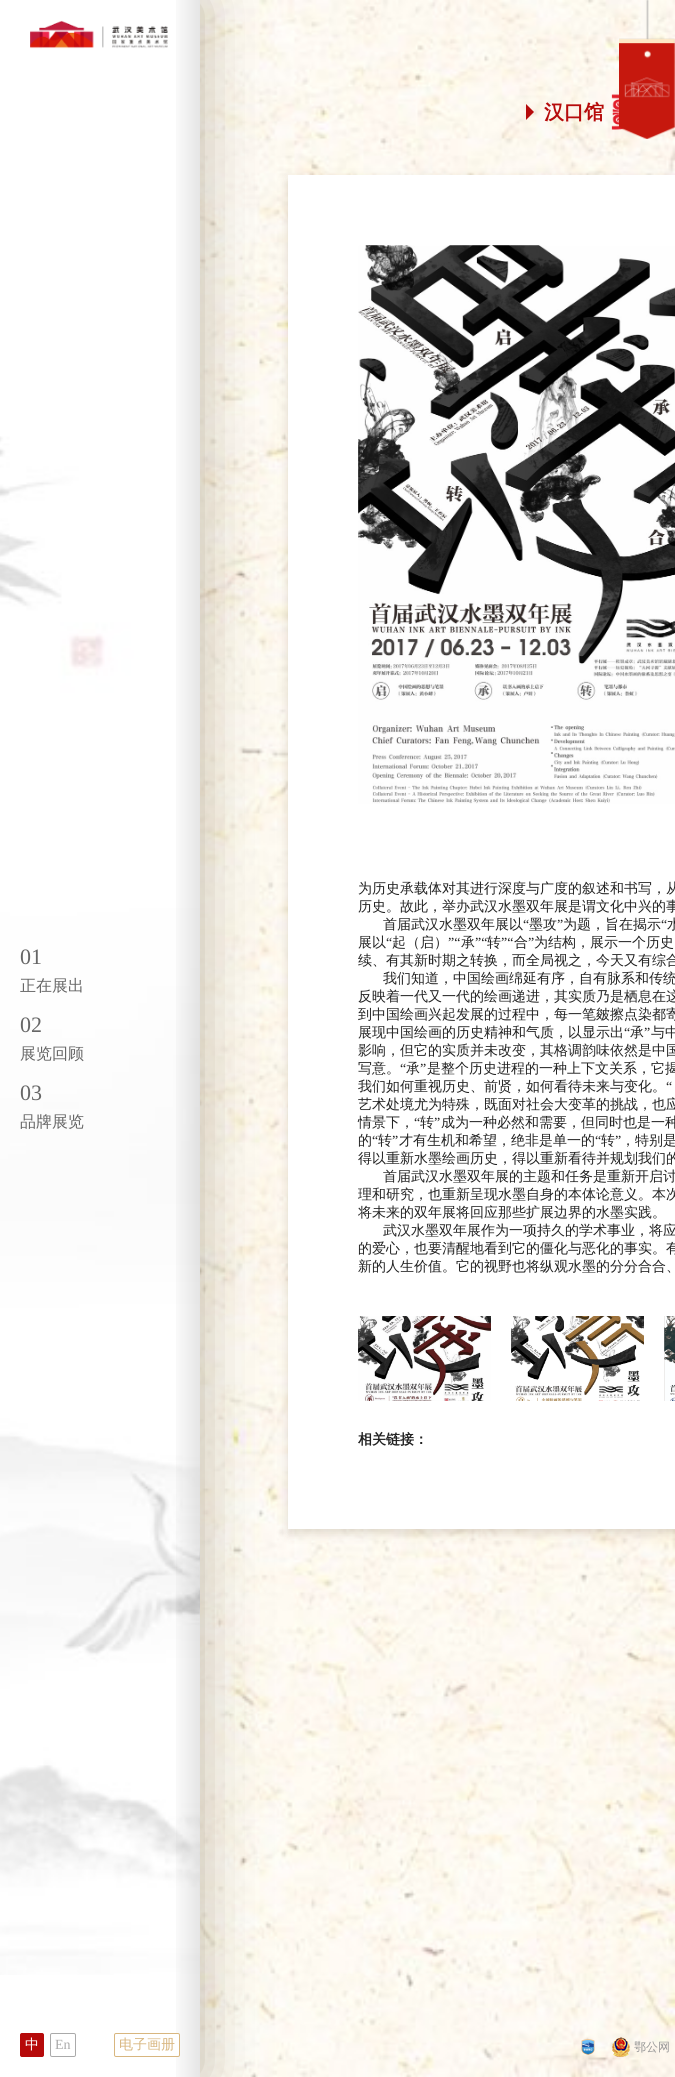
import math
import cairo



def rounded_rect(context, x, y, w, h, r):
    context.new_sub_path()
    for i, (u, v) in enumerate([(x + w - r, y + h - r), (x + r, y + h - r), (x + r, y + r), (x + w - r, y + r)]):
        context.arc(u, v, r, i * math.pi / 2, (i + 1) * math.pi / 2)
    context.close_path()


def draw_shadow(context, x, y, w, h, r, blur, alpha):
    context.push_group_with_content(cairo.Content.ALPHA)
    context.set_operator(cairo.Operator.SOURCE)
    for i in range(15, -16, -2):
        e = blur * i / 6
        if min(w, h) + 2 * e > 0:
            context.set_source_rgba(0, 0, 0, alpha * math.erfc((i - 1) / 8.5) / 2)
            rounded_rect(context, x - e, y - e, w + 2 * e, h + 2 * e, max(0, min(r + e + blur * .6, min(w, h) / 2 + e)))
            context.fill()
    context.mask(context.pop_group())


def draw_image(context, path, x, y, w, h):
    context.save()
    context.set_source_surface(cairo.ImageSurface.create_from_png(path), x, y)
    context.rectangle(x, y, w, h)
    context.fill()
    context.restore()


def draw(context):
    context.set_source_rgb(1, 1, 1)
    context.paint()
    draw_image(context, "images/4.png", 200, 0, 475, 2077)
    draw_image(context, "images/5.png", 611, 94, 14, 36)
    draw_image(context, "images/1.png", 619, 0, 56, 139)
    context.set_source_rgb(94 / 255, 71 / 255, 44 / 255)
    draw_shadow(context, 288, 179, 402, 1354, 0, 5, 0.2)
    context.set_source_rgb(1, 1, 1)
    context.rectangle(288, 175, 387, 1354)
    context.fill()
    context.set_source_rgb(176 / 255, 165 / 255, 145 / 255)
    draw_shadow(context, 0, 0, 200, 2077, 0, 30, 0.8)
    context.set_source_rgb(1, 1, 1)
    context.rectangle(0, 0, 200, 2077)
    context.fill()
    draw_image(context, "images/2.png", 0, 436, 200, 1539)
    draw_image(context, "images/3.png", 30, 20, 138, 29)
    gradient = cairo.LinearGradient(170, 1039, 200, 1039)
    gradient.add_color_stop_rgba(0, 0, 0, 0, 0)
    gradient.add_color_stop_rgba(1, 0, 0, 0, 0.1)
    context.set_source(gradient)
    context.rectangle(176, 0, 24, 2077)
    context.fill()
    context.set_source_rgb(182 / 255, 10 / 255, 10 / 255)
    rounded_rect(context, 20.5, 2033.5, 23, 23, 1.5)
    context.fill_preserve()
    context.set_line_width(1)
    context.stroke()
    rounded_rect(context, 50.5, 2033.5, 25, 23, 1.5)
    context.set_source_rgb(170 / 255, 170 / 255, 170 / 255)
    context.stroke()
    context.set_source_rgb(1, 1, 1)
    rounded_rect(context, 114.5, 2033.5, 65, 23, 1.5)
    context.fill_preserve()
    context.set_source_rgb(216 / 255, 182 / 255, 127 / 255)
    context.stroke()
    context.set_source_rgb(182 / 255, 10 / 255, 10 / 255)
    context.new_path()
    context.move_to(526, 120)
    context.line_to(526, 104)
    context.line_to(534, 112)
    context.close_path()
    context.fill()
    draw_image(context, "images/6.png", 358, 245, 317, 559)
    draw_image(context, "images/7.png", 358, 1316, 133, 85)
    draw_image(context, "images/8.png", 511, 1316, 133, 85)
    draw_image(context, "images/9.png", 664, 1316, 11, 85)
    draw_image(context, "images/10.png", 581, 2039, 14, 16)
    draw_image(context, "images/11.png", 612, 2037, 18, 20)
    context.select_font_face("Liberation Serif")
    context.set_font_size(22)
    context.set_source_rgb(102 / 255, 102 / 255, 102 / 255)
    context.move_to(20, 964)
    context.show_text("01")
    context.select_font_face("WenQuanYi Zen Hei Medium")
    context.set_font_size(16)
    context.move_to(20, 991)
    context.show_text("正在展出")
    context.select_font_face("Liberation Serif")
    context.set_font_size(22)
    context.move_to(20, 1032)
    context.show_text("02")
    context.select_font_face("WenQuanYi Zen Hei Medium")
    context.set_font_size(16)
    context.move_to(20, 1059)
    context.show_text("展览回顾")
    context.select_font_face("Liberation Serif")
    context.set_font_size(22)
    context.move_to(20, 1100)
    context.show_text("03")
    context.select_font_face("WenQuanYi Zen Hei Medium")
    context.set_font_size(16)
    context.move_to(20, 1127)
    context.show_text("品牌展览")
    context.set_font_size(14)
    context.set_source_rgb(1, 1, 1)
    context.move_to(25, 2049)
    context.show_text("中")
    context.select_font_face("Liberation Serif")
    context.set_source_rgb(170 / 255, 170 / 255, 170 / 255)
    context.move_to(55, 2049)
    context.show_text("En")
    context.select_font_face("WenQuanYi Zen Hei Medium")
    context.set_source_rgb(216 / 255, 182 / 255, 127 / 255)
    context.move_to(119, 2049)
    context.show_text("电子画册")
    context.select_font_face("WenQuanYi Zen Hei", cairo.FontSlant.NORMAL, cairo.FontWeight.BOLD)
    context.set_font_size(20)
    context.set_source_rgb(182 / 255, 10 / 255, 10 / 255)
    context.move_to(544, 119)
    context.show_text("汉口馆")
    context.select_font_face("WenQuanYi Zen Hei Medium")
    context.set_font_size(14)
    context.set_source_rgb(34 / 255, 34 / 255, 34 / 255)
    context.move_to(358, 893)
    context.show_text("为历史承载体对其进行深度与广度的叙述和书写，从")
    context.move_to(358, 911)
    context.show_text("历史。故此，举办武汉水墨双年展是谓文化中兴的事")
    context.move_to(383, 929)
    context.show_text("首届武汉水墨双年展以")
    context.select_font_face("Liberation Serif")
    context.move_to(523, 929)
    context.show_text("“")
    context.select_font_face("WenQuanYi Zen Hei Medium")
    context.move_to(529, 929)
    context.show_text("墨攻")
    context.select_font_face("Liberation Serif")
    context.move_to(557, 929)
    context.show_text("”")
    context.select_font_face("WenQuanYi Zen Hei Medium")
    context.move_to(563, 929)
    context.show_text("为题，旨在揭示")
    context.select_font_face("Liberation Serif")
    context.move_to(661, 929)
    context.show_text("“")
    context.select_font_face("WenQuanYi Zen Hei Medium")
    context.move_to(667, 929)
    context.show_text("水")
    context.move_to(358, 947)
    context.show_text("展以")
    context.select_font_face("Liberation Serif")
    context.move_to(386, 947)
    context.show_text("“")
    context.select_font_face("WenQuanYi Zen Hei Medium")
    context.move_to(392, 947)
    context.show_text("起（启）")
    context.select_font_face("Liberation Serif")
    context.move_to(448, 947)
    context.show_text("”“")
    context.select_font_face("WenQuanYi Zen Hei Medium")
    context.move_to(461, 947)
    context.show_text("承")
    context.select_font_face("Liberation Serif")
    context.move_to(475, 947)
    context.show_text("”“")
    context.select_font_face("WenQuanYi Zen Hei Medium")
    context.move_to(487, 947)
    context.show_text("转")
    context.select_font_face("Liberation Serif")
    context.move_to(501, 947)
    context.show_text("”“")
    context.select_font_face("WenQuanYi Zen Hei Medium")
    context.move_to(514, 947)
    context.show_text("合")
    context.select_font_face("Liberation Serif")
    context.move_to(528, 947)
    context.show_text("”")
    context.select_font_face("WenQuanYi Zen Hei Medium")
    context.move_to(534, 947)
    context.show_text("为结构，展示一个历史")
    context.move_to(358, 965)
    context.show_text("续、有其新时期之转换，而全局视之，今天又有综合")
    context.move_to(383, 983)
    context.show_text("我们知道，中国绘画绵延有序，自有脉系和传统")
    context.move_to(358, 1001)
    context.show_text("反映着一代又一代的绘画递进，其实质乃是栖息在这")
    context.move_to(358, 1019)
    context.show_text("到中国绘画兴起发展的过程中，每一笔皴擦点染都寄")
    context.move_to(358, 1037)
    context.show_text("展现中国绘画的历史精神和气质，以显示出")
    context.select_font_face("Liberation Serif")
    context.move_to(624, 1037)
    context.show_text("“")
    context.select_font_face("WenQuanYi Zen Hei Medium")
    context.move_to(630, 1037)
    context.show_text("承")
    context.select_font_face("Liberation Serif")
    context.move_to(644, 1037)
    context.show_text("”")
    context.select_font_face("WenQuanYi Zen Hei Medium")
    context.move_to(651, 1037)
    context.show_text("与中")
    context.move_to(358, 1055)
    context.show_text("影响，但它的实质并未改变，其格调韵味依然是中国")
    context.move_to(358, 1073)
    context.show_text("写意。")
    context.select_font_face("Liberation Serif")
    context.move_to(400, 1073)
    context.show_text("“")
    context.select_font_face("WenQuanYi Zen Hei Medium")
    context.move_to(406, 1073)
    context.show_text("承")
    context.select_font_face("Liberation Serif")
    context.move_to(420, 1073)
    context.show_text("”")
    context.select_font_face("WenQuanYi Zen Hei Medium")
    context.move_to(427, 1073)
    context.show_text("是整个历史进程的一种上下文关系，它揭")
    context.move_to(358, 1091)
    context.show_text("我们如何重视历史、前贤，如何看待未来与变化。")
    context.select_font_face("Liberation Serif")
    context.move_to(666, 1091)
    context.show_text("“")
    context.select_font_face("WenQuanYi Zen Hei Medium")
    context.move_to(358, 1109)
    context.show_text("艺术处境尤为特殊，既面对社会大变革的挑战，也应")
    context.move_to(358, 1127)
    context.show_text("情景下，")
    context.select_font_face("Liberation Serif")
    context.move_to(414, 1127)
    context.show_text("“")
    context.select_font_face("WenQuanYi Zen Hei Medium")
    context.move_to(420, 1127)
    context.show_text("转")
    context.select_font_face("Liberation Serif")
    context.move_to(434, 1127)
    context.show_text("”")
    context.select_font_face("WenQuanYi Zen Hei Medium")
    context.move_to(441, 1127)
    context.show_text("成为一种必然和需要，但同时也是一种")
    context.move_to(358, 1145)
    context.show_text("的")
    context.select_font_face("Liberation Serif")
    context.move_to(372, 1145)
    context.show_text("“")
    context.select_font_face("WenQuanYi Zen Hei Medium")
    context.move_to(378, 1145)
    context.show_text("转")
    context.select_font_face("Liberation Serif")
    context.move_to(392, 1145)
    context.show_text("”")
    context.select_font_face("WenQuanYi Zen Hei Medium")
    context.move_to(399, 1145)
    context.show_text("才有生机和希望，绝非是单一的")
    context.select_font_face("Liberation Serif")
    context.move_to(595, 1145)
    context.show_text("“")
    context.select_font_face("WenQuanYi Zen Hei Medium")
    context.move_to(601, 1145)
    context.show_text("转")
    context.select_font_face("Liberation Serif")
    context.move_to(615, 1145)
    context.show_text("”")
    context.select_font_face("WenQuanYi Zen Hei Medium")
    context.move_to(621, 1145)
    context.show_text("，特别是")
    context.move_to(358, 1163)
    context.show_text("得以重新水墨绘画历史，得以重新看待并规划我们的")
    context.move_to(383, 1181)
    context.show_text("首届武汉水墨双年展的主题和任务是重新开启讨")
    context.move_to(358, 1199)
    context.show_text("理和研究，也重新呈现水墨自身的本体论意义。本次")
    context.move_to(358, 1217)
    context.show_text("将未来的双年展将回应那些扩展边界的水墨实践。")
    context.move_to(383, 1235)
    context.show_text("武汉水墨双年展作为一项持久的学术事业，将应")
    context.move_to(358, 1253)
    context.show_text("的爱心，也要清醒地看到它的僵化与恶化的事实。有")
    context.move_to(358, 1271)
    context.show_text("新的人生价值。它的视野也将纵观水墨的分分合合、")
    context.select_font_face("WenQuanYi Zen Hei", cairo.FontSlant.NORMAL, cairo.FontWeight.BOLD)
    context.move_to(358, 1444)
    context.show_text("相关链接：")
    context.select_font_face("WenQuanYi Zen Hei Medium")
    context.set_font_size(12)
    context.set_source_rgb(153 / 255, 153 / 255, 153 / 255)
    context.move_to(634, 2051)
    context.show_text("鄂公网")


surface = cairo.ImageSurface(cairo.Format.RGB24, 675, 2077)
context = cairo.Context(surface)
options = cairo.FontOptions()
options.set_hint_metrics(cairo.HintMetrics.OFF)
options.set_hint_style(cairo.HintStyle.NONE)
context.set_font_options(options)
context.set_miter_limit(4)
draw(context)
surface.write_to_png("out.png")
